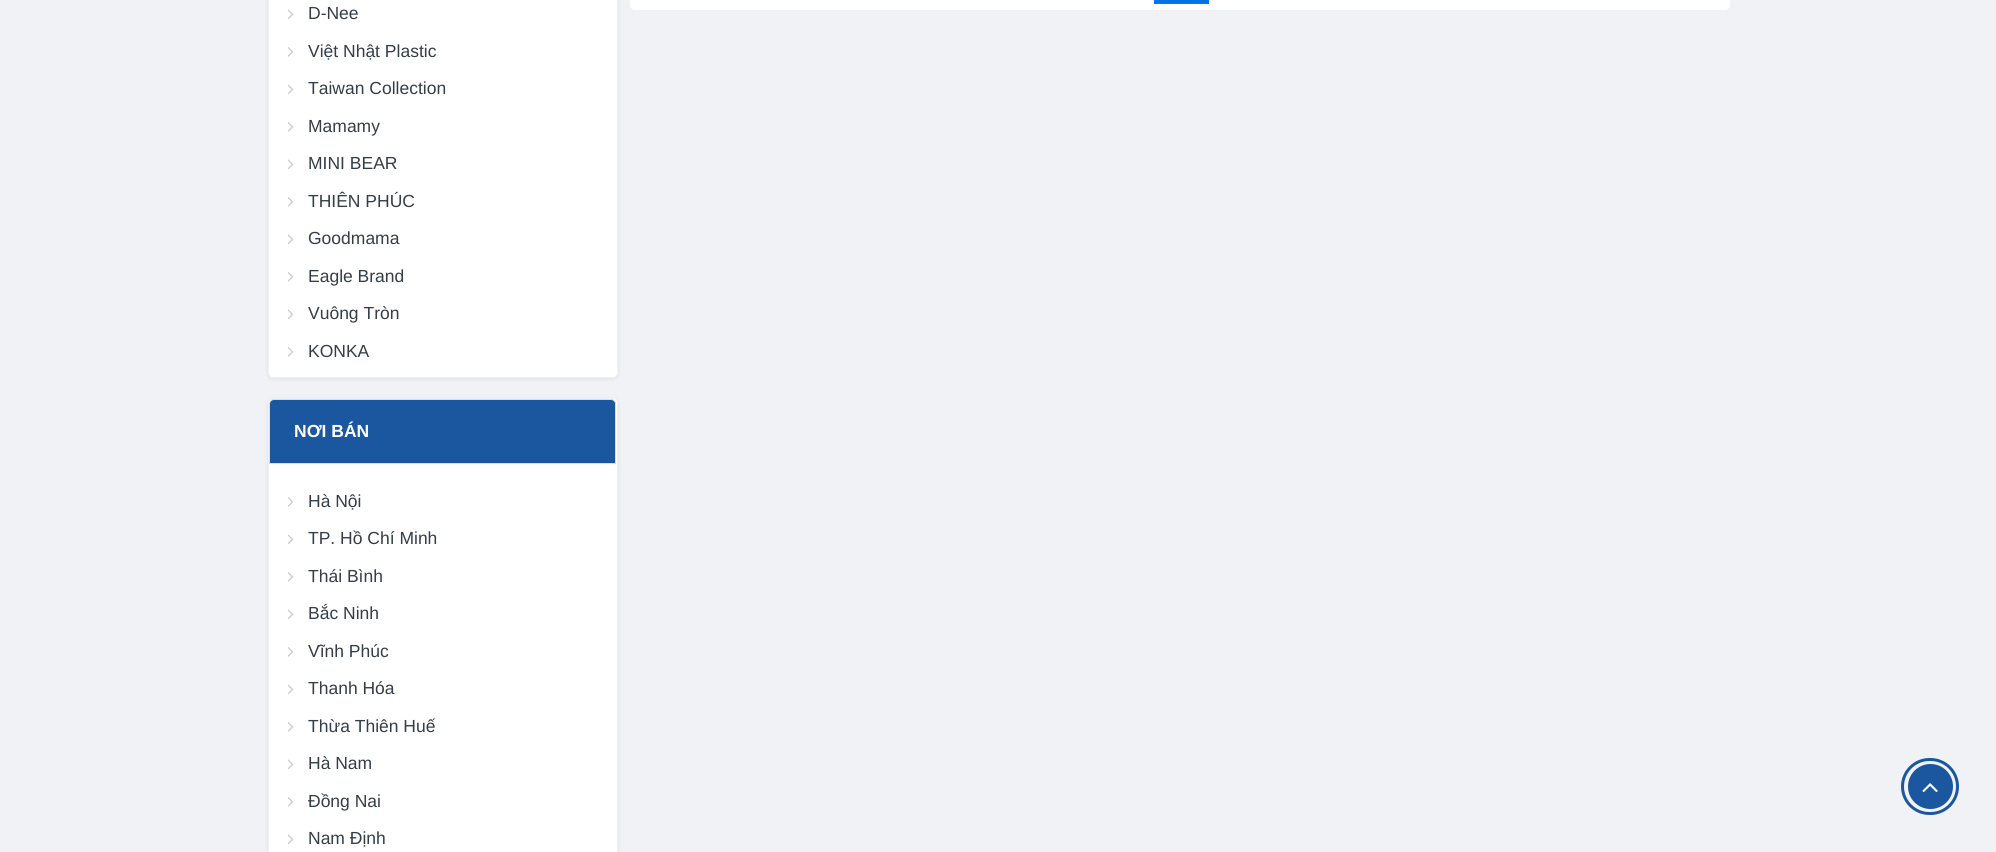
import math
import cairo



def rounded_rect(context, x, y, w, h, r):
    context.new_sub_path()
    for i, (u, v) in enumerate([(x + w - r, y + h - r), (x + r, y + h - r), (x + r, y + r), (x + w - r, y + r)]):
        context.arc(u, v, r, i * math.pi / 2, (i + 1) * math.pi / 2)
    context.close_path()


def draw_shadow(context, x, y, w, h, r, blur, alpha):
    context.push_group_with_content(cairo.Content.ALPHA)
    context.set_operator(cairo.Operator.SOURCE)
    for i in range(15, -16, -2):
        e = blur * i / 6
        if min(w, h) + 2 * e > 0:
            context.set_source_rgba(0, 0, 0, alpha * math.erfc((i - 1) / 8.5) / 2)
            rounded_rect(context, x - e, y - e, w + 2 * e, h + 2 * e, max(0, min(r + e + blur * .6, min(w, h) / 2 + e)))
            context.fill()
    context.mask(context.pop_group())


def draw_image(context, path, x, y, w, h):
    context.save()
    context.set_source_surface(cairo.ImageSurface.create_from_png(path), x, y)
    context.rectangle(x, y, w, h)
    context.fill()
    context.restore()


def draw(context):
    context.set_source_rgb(240 / 255, 242 / 255, 245 / 255)
    context.paint()
    context.set_source_rgb(1, 1, 1)
    rounded_rect(context, 630, -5, 1100, 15, 5)
    context.fill()
    context.set_source_rgb(4 / 255, 113 / 255, 231 / 255)
    context.rectangle(1154.5, -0.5, 54, 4)
    context.fill_preserve()
    context.set_source_rgb(0, 123 / 255, 1)
    context.set_line_width(1)
    context.stroke()
    context.set_source_rgb(0, 0, 0)
    draw_shadow(context, 268, -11, 350, 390, 5, 2, 0.08)
    context.set_source_rgb(1, 1, 1)
    rounded_rect(context, 268.5, -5.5, 349, 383, 4.5)
    context.fill_preserve()
    context.set_source_rgb(241 / 255, 241 / 255, 241 / 255)
    context.stroke()
    draw_image(context, "images/1.png", 288, 9, 6, 11)
    draw_image(context, "images/2.png", 288, 47, 6, 10)
    draw_image(context, "images/1.png", 288, 84, 6, 11)
    draw_image(context, "images/2.png", 288, 122, 6, 10)
    draw_image(context, "images/1.png", 288, 159, 6, 11)
    draw_image(context, "images/2.png", 288, 197, 6, 10)
    draw_image(context, "images/1.png", 288, 234, 6, 11)
    draw_image(context, "images/2.png", 288, 272, 6, 10)
    draw_image(context, "images/1.png", 288, 309, 6, 11)
    draw_image(context, "images/2.png", 288, 347, 6, 10)
    context.set_source_rgb(0, 0, 0)
    draw_shadow(context, 268, 399, 350, 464, 5, 2, 0.08)
    context.set_source_rgb(1, 1, 1)
    rounded_rect(context, 268.5, 398.5, 349, 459, 4.5)
    context.fill_preserve()
    context.set_source_rgb(241 / 255, 241 / 255, 241 / 255)
    context.stroke()
    context.set_source_rgb(26 / 255, 87 / 255, 158 / 255)
    context.new_path()
    context.move_to(274, 399.5)
    context.line_to(611, 399.5)
    context.curve_to(613.5, 399.5, 615.5, 401.5, 615.5, 404)
    context.line_to(615.5, 463.5)
    context.line_to(269.5, 463.5)
    context.line_to(269.5, 404)
    context.curve_to(269.5, 401.5, 271.5, 399.5, 274, 399.5)
    context.close_path()
    context.fill_preserve()
    context.set_source_rgb(221 / 255, 221 / 255, 221 / 255)
    context.stroke()
    draw_image(context, "images/2.png", 288, 497, 6, 10)
    draw_image(context, "images/1.png", 288, 534, 6, 11)
    draw_image(context, "images/2.png", 288, 572, 6, 10)
    draw_image(context, "images/1.png", 288, 609, 6, 11)
    draw_image(context, "images/2.png", 288, 647, 6, 10)
    draw_image(context, "images/1.png", 288, 684, 6, 11)
    draw_image(context, "images/2.png", 288, 722, 6, 10)
    draw_image(context, "images/1.png", 288, 759, 6, 11)
    draw_image(context, "images/2.png", 288, 797, 6, 10)
    draw_image(context, "images/1.png", 288, 834, 6, 11)
    rounded_rect(context, 1902.5, 759.5, 55, 54, 27)
    context.set_source_rgb(26 / 255, 87 / 255, 158 / 255)
    context.set_line_width(3)
    context.stroke()
    context.arc(1930.5, 786.5, 22.5, 0, 2 * math.pi)
    context.fill()
    draw_image(context, "images/3.png", 1922, 783, 16, 10)
    context.select_font_face("Liberation Sans")
    context.set_font_size(17.5)
    context.set_source_rgb(51 / 255, 62 / 255, 72 / 255)
    context.move_to(308, 19)
    context.show_text("D-Nee")
    context.move_to(308, 57)
    context.show_text("Việt Nhật Plastic")
    context.move_to(308, 94)
    context.show_text("Taiwan Collection")
    context.move_to(308, 132)
    context.show_text("Mamamy")
    context.move_to(308, 169)
    context.show_text("MINI BEAR")
    context.move_to(308, 207)
    context.show_text("THIÊN PHÚC")
    context.move_to(308, 244)
    context.show_text("Goodmama")
    context.move_to(308, 282)
    context.show_text("Eagle Brand")
    context.move_to(308, 319)
    context.show_text("Vuông Tròn")
    context.move_to(308, 357)
    context.show_text("KONKA")
    context.select_font_face("Liberation Sans", cairo.FontSlant.NORMAL, cairo.FontWeight.BOLD)
    context.set_source_rgb(1, 1, 1)
    context.move_to(294, 437)
    context.show_text("NƠI BÁN")
    context.select_font_face("Liberation Sans")
    context.set_source_rgb(51 / 255, 62 / 255, 72 / 255)
    context.move_to(308, 507)
    context.show_text("Hà Nội")
    context.move_to(308, 544)
    context.show_text("TP. Hồ Chí Minh")
    context.move_to(308, 582)
    context.show_text("Thái Bình")
    context.move_to(308, 619)
    context.show_text("Bắc Ninh")
    context.move_to(308, 657)
    context.show_text("Vĩnh Phúc")
    context.move_to(308, 694)
    context.show_text("Thanh Hóa")
    context.move_to(308, 732)
    context.show_text("Thừa Thiên Huế")
    context.move_to(308, 769)
    context.show_text("Hà Nam")
    context.move_to(308, 807)
    context.show_text("Đồng Nai")
    context.move_to(308, 844)
    context.show_text("Nam Định")


surface = cairo.ImageSurface(cairo.Format.RGB24, 1996, 852)
context = cairo.Context(surface)
options = cairo.FontOptions()
options.set_hint_metrics(cairo.HintMetrics.OFF)
options.set_hint_style(cairo.HintStyle.NONE)
context.set_font_options(options)
context.set_miter_limit(4)
draw(context)
surface.write_to_png("out.png")
